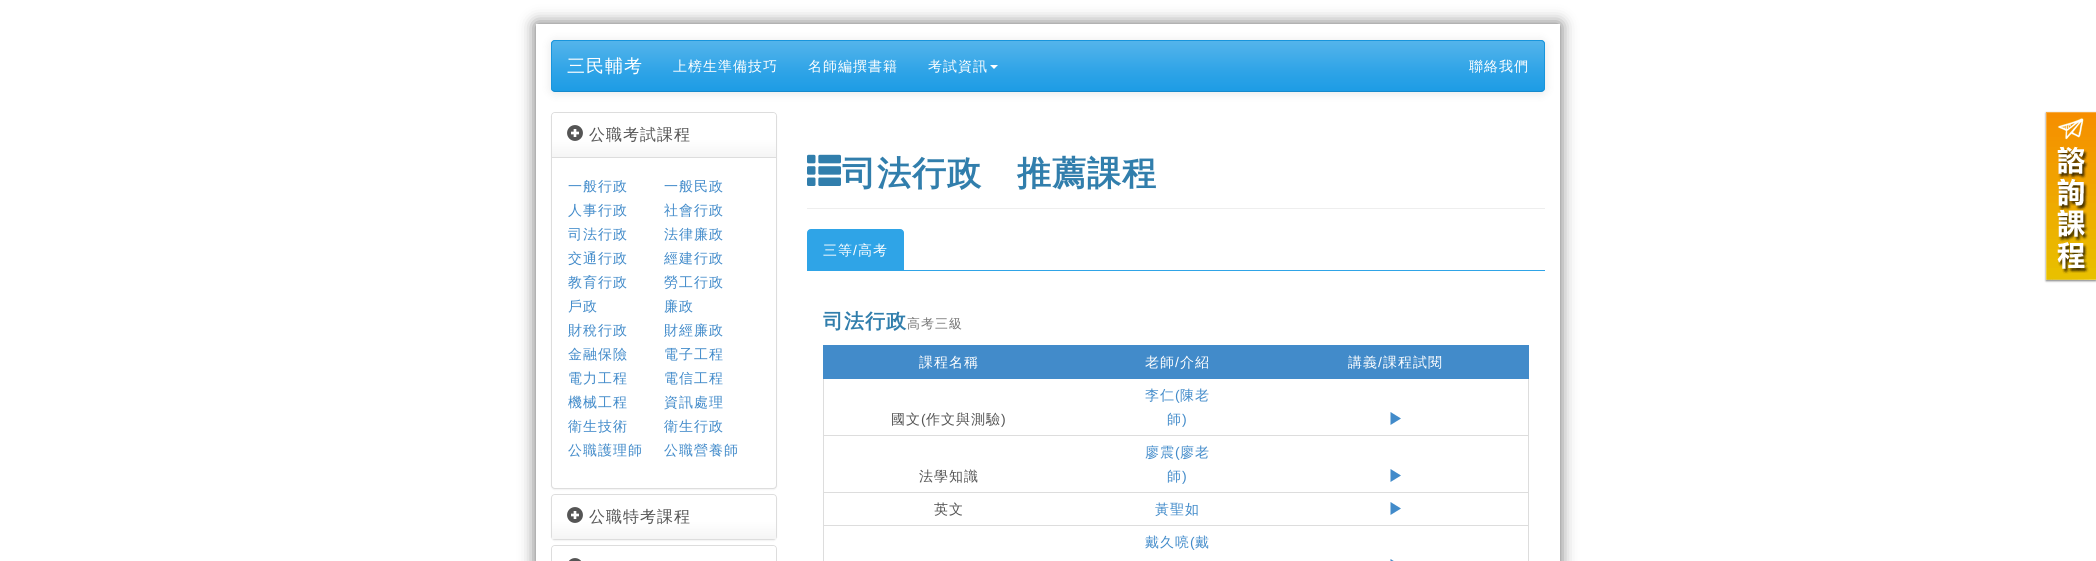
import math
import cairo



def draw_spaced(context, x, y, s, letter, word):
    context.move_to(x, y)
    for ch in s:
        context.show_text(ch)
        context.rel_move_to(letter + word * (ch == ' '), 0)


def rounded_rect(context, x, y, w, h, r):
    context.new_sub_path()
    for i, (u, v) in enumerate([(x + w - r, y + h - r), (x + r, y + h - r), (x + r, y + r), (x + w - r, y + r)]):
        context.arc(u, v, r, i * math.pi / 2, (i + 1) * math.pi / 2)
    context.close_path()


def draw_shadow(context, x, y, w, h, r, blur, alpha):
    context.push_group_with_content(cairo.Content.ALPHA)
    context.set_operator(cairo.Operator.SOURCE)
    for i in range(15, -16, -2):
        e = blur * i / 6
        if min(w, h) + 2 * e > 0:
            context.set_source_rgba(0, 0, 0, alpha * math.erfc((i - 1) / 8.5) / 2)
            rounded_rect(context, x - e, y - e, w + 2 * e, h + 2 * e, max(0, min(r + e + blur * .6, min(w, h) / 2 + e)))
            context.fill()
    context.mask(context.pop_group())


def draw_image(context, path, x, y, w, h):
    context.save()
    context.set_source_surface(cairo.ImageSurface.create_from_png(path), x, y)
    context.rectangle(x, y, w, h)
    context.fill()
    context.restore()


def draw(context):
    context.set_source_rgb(1, 1, 1)
    context.paint()
    context.save()
    context.set_fill_rule(cairo.FillRule.EVEN_ODD)
    context.new_path()
    context.move_to(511, 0)
    context.line_to(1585, 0)
    context.line_to(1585, 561)
    context.line_to(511, 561)
    context.close_path()
    context.move_to(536, 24)
    context.line_to(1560, 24)
    context.line_to(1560, 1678)
    context.line_to(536, 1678)
    context.close_path()
    context.clip()
    context.set_source_rgb(102 / 255, 102 / 255, 102 / 255)
    draw_shadow(context, 536, 24, 1024, 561, 0, 8, 1)
    context.restore()
    context.set_source_rgb(0, 0, 0)
    draw_shadow(context, 551, 41, 994, 52, 4, 5, 0.1)
    context.set_source_rgb(47 / 255, 164 / 255, 231 / 255)
    rounded_rect(context, 551, 40, 994, 52, 4)
    context.fill()
    context.save()
    rounded_rect(context, 551, 40, 994, 52, 4)
    context.clip()
    gradient = cairo.LinearGradient(1048, 41, 1048, 91)
    gradient.add_color_stop_rgba(0, 84 / 255, 180 / 255, 235 / 255, 1)
    gradient.add_color_stop_rgba(0.6, 47 / 255, 164 / 255, 231 / 255, 1)
    gradient.add_color_stop_rgba(1, 29 / 255, 156 / 255, 229 / 255, 1)
    context.set_source(gradient)
    context.rectangle(552, 41, 992, 50)
    context.fill()
    context.restore()
    context.new_path()
    context.move_to(1543.5, 90.5)
    context.line_to(1541, 91.5)
    context.line_to(555, 91.5)
    context.line_to(552.5, 90.5)
    context.set_source_rgb(23 / 255, 138 / 255, 204 / 255)
    context.set_line_width(1)
    context.stroke()
    context.new_path()
    context.move_to(552.5, 90.5)
    context.curve_to(552, 90, 551.5, 89, 551.5, 88)
    context.line_to(551.5, 44)
    context.curve_to(551.5, 43, 552, 42, 552.5, 41.5)
    context.curve_to(553, 41, 554, 40.5, 555, 40.5)
    context.line_to(1541, 40.5)
    context.curve_to(1542, 40.5, 1543, 41, 1543.5, 41.5)
    context.curve_to(1544, 42, 1544.5, 43, 1544.5, 44)
    context.line_to(1544.5, 88)
    context.curve_to(1544.5, 89, 1544, 90, 1543.5, 90.5)
    context.set_source_rgb(25 / 255, 149 / 255, 220 / 255)
    context.stroke()
    context.set_source_rgb(1, 1, 1)
    context.new_path()
    context.move_to(990, 65)
    context.line_to(998, 65)
    context.line_to(994, 69)
    context.close_path()
    context.fill()
    context.set_source_rgb(0, 0, 0)
    draw_shadow(context, 551, 113, 226, 377, 4, 0.5, 0.05)
    context.set_source_rgb(1, 1, 1)
    rounded_rect(context, 551.5, 112.5, 225, 376, 3.5)
    context.fill_preserve()
    context.set_source_rgb(221 / 255, 221 / 255, 221 / 255)
    context.stroke()
    gradient = cairo.LinearGradient(664, 113, 664, 157)
    gradient.add_color_stop_rgba(0, 1, 1, 1, 1)
    gradient.add_color_stop_rgba(0.6, 1, 1, 1, 1)
    gradient.add_color_stop_rgba(1, 245 / 255, 245 / 255, 245 / 255, 1)
    context.set_source(gradient)
    context.new_path()
    context.move_to(555, 113)
    context.line_to(773, 113)
    context.curve_to(774.5, 113, 776, 114.5, 776, 116)
    context.line_to(776, 157)
    context.line_to(552, 157)
    context.line_to(552, 116)
    context.curve_to(552, 114.5, 553.5, 113, 555, 113)
    context.close_path()
    context.fill()
    draw_image(context, "images/1.png", 567, 125, 16, 16)
    context.set_source_rgb(221 / 255, 221 / 255, 221 / 255)
    context.rectangle(552, 157, 224, 1)
    context.fill()
    context.set_source_rgb(0, 0, 0)
    draw_shadow(context, 551, 495, 226, 46, 4, 0.5, 0.05)
    rounded_rect(context, 551.5, 494.5, 225, 45, 3.5)
    context.set_source_rgb(221 / 255, 221 / 255, 221 / 255)
    context.stroke()
    gradient = cairo.LinearGradient(664, 495, 664, 539)
    gradient.add_color_stop_rgba(0, 1, 1, 1, 1)
    gradient.add_color_stop_rgba(0.6, 1, 1, 1, 1)
    gradient.add_color_stop_rgba(1, 245 / 255, 245 / 255, 245 / 255, 1)
    context.set_source(gradient)
    context.new_path()
    context.move_to(555, 495)
    context.line_to(773, 495)
    context.curve_to(774.5, 495, 776, 496.5, 776, 498)
    context.line_to(776, 539)
    context.line_to(552, 539)
    context.line_to(552, 498)
    context.curve_to(552, 496.5, 553.5, 495, 555, 495)
    context.close_path()
    context.fill()
    draw_image(context, "images/1.png", 567, 507, 16, 16)
    rounded_rect(context, 551.5, 545.5, 225, 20, 3.5)
    context.set_source_rgb(221 / 255, 221 / 255, 221 / 255)
    context.stroke()
    gradient = cairo.LinearGradient(664, 546, 664, 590)
    gradient.add_color_stop_rgba(0, 1, 1, 1, 1)
    gradient.add_color_stop_rgba(0.6, 1, 1, 1, 1)
    gradient.add_color_stop_rgba(1, 245 / 255, 245 / 255, 245 / 255, 1)
    context.set_source(gradient)
    context.new_path()
    context.move_to(555, 546)
    context.line_to(773, 546)
    context.curve_to(774.5, 546, 776, 547.5, 776, 549)
    context.line_to(776, 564)
    context.line_to(552, 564)
    context.line_to(552, 549)
    context.curve_to(552, 547.5, 553.5, 546, 555, 546)
    context.close_path()
    context.fill()
    draw_image(context, "images/2.png", 569, 558, 12, 3)
    context.set_source_rgb(238 / 255, 238 / 255, 238 / 255)
    context.rectangle(807, 208, 738, 1)
    context.fill()
    draw_image(context, "images/3.png", 807, 154, 34, 32)
    context.set_source_rgb(47 / 255, 164 / 255, 231 / 255)
    context.rectangle(904, 270, 641, 1)
    context.fill()
    context.new_path()
    context.move_to(811, 229.5)
    context.line_to(900, 229.5)
    context.curve_to(902, 229.5, 903.5, 231, 903.5, 233)
    context.line_to(903.5, 270.5)
    context.line_to(807.5, 270.5)
    context.line_to(807.5, 233)
    context.curve_to(807.5, 231, 809, 229.5, 811, 229.5)
    context.close_path()
    context.fill_preserve()
    context.stroke()
    context.rectangle(823.5, 378.5, 705, 57)
    context.set_source_rgb(221 / 255, 221 / 255, 221 / 255)
    context.stroke()
    context.set_source_rgb(66 / 255, 139 / 255, 202 / 255)
    context.rectangle(823, 345, 706, 34)
    context.fill()
    context.new_path()
    context.move_to(1390.5, 425)
    context.line_to(1401, 418.5)
    context.line_to(1390.5, 412)
    context.close_path()
    context.fill()
    context.rectangle(823.5, 435.5, 705, 57)
    context.set_source_rgb(221 / 255, 221 / 255, 221 / 255)
    context.stroke()
    context.set_source_rgb(66 / 255, 139 / 255, 202 / 255)
    context.new_path()
    context.move_to(1390.5, 482)
    context.line_to(1401, 475.5)
    context.line_to(1390.5, 469)
    context.close_path()
    context.fill()
    context.rectangle(823.5, 492.5, 705, 33)
    context.set_source_rgb(221 / 255, 221 / 255, 221 / 255)
    context.stroke()
    context.set_source_rgb(66 / 255, 139 / 255, 202 / 255)
    context.new_path()
    context.move_to(1390.5, 515)
    context.line_to(1401, 508.5)
    context.line_to(1390.5, 502)
    context.close_path()
    context.fill()
    context.rectangle(823.5, 525.5, 705, 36)
    context.set_source_rgb(221 / 255, 221 / 255, 221 / 255)
    context.stroke()
    context.set_source_rgb(66 / 255, 139 / 255, 202 / 255)
    context.new_path()
    context.move_to(1390.5, 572)
    context.line_to(1401, 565.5)
    context.line_to(1390.5, 559)
    context.close_path()
    context.fill()
    context.set_source_rgb(0, 0, 0)
    draw_shadow(context, 2046, 113, 50, 168, 0, 1, 0.5)
    draw_image(context, "images/4.png", 2046, 112, 50, 168)
    context.select_font_face("WenQuanYi Zen Hei Medium")
    context.set_font_size(18)
    context.set_source_rgb(1, 1, 1)
    draw_spaced(context, 567, 72, "三民輔考", 1, 0)
    context.set_font_size(14)
    draw_spaced(context, 673, 71, "上榜生準備技巧", 1, 0)
    draw_spaced(context, 808, 71, "名師編撰書籍", 1, 0)
    draw_spaced(context, 928, 71, "考試資訊", 1, 0)
    draw_spaced(context, 1469, 71, "聯絡我們", 1, 0)
    context.set_font_size(16)
    context.set_source_rgb(85 / 255, 85 / 255, 85 / 255)
    draw_spaced(context, 589, 140, "公職考試課程", 1, 0)
    context.set_font_size(14)
    context.set_source_rgb(66 / 255, 139 / 255, 202 / 255)
    draw_spaced(context, 568, 191, "一般行政", 1, 0)
    draw_spaced(context, 664, 191, "一般民政", 1, 0)
    draw_spaced(context, 568, 215, "人事行政", 1, 0)
    draw_spaced(context, 664, 215, "社會行政", 1, 0)
    draw_spaced(context, 568, 239, "司法行政", 1, 0)
    draw_spaced(context, 664, 239, "法律廉政", 1, 0)
    draw_spaced(context, 568, 263, "交通行政", 1, 0)
    draw_spaced(context, 664, 263, "經建行政", 1, 0)
    draw_spaced(context, 568, 287, "教育行政", 1, 0)
    draw_spaced(context, 664, 287, "勞工行政", 1, 0)
    draw_spaced(context, 568, 311, "戶政", 1, 0)
    draw_spaced(context, 664, 311, "廉政", 1, 0)
    draw_spaced(context, 568, 335, "財稅行政", 1, 0)
    draw_spaced(context, 664, 335, "財經廉政", 1, 0)
    draw_spaced(context, 568, 359, "金融保險", 1, 0)
    draw_spaced(context, 664, 359, "電子工程", 1, 0)
    draw_spaced(context, 568, 383, "電力工程", 1, 0)
    draw_spaced(context, 664, 383, "電信工程", 1, 0)
    draw_spaced(context, 568, 407, "機械工程", 1, 0)
    draw_spaced(context, 664, 407, "資訊處理", 1, 0)
    draw_spaced(context, 568, 431, "衛生技術", 1, 0)
    draw_spaced(context, 664, 431, "衛生行政", 1, 0)
    draw_spaced(context, 568, 455, "公職護理師", 1, 0)
    draw_spaced(context, 664, 455, "公職營養師", 1, 0)
    context.set_font_size(16)
    context.set_source_rgb(85 / 255, 85 / 255, 85 / 255)
    draw_spaced(context, 589, 522, "公職特考課程", 1, 0)
    context.select_font_face("WenQuanYi Zen Hei", cairo.FontSlant.NORMAL, cairo.FontWeight.BOLD)
    context.set_font_size(34)
    context.set_source_rgb(49 / 255, 126 / 255, 172 / 255)
    draw_spaced(context, 842, 185, "司法行政　推薦課程", 1, 0)
    context.select_font_face("WenQuanYi Zen Hei Medium")
    context.set_font_size(14)
    context.set_source_rgb(1, 1, 1)
    draw_spaced(context, 823, 255, "三等", 1, 0)
    context.select_font_face("Liberation Sans")
    draw_spaced(context, 853, 255, "/", 1, 0)
    context.select_font_face("WenQuanYi Zen Hei Medium")
    draw_spaced(context, 858, 255, "高考", 1, 0)
    context.select_font_face("WenQuanYi Zen Hei", cairo.FontSlant.NORMAL, cairo.FontWeight.BOLD)
    context.set_font_size(20)
    context.set_source_rgb(49 / 255, 126 / 255, 172 / 255)
    draw_spaced(context, 823, 328, "司法行政", 1, 0)
    context.select_font_face("WenQuanYi Zen Hei Medium")
    context.set_font_size(13)
    context.set_source_rgb(119 / 255, 119 / 255, 119 / 255)
    draw_spaced(context, 907, 328, "高考三級", 1, 0)
    context.set_font_size(14)
    context.set_source_rgb(1, 1, 1)
    draw_spaced(context, 919, 367, "課程名稱", 1, 0)
    draw_spaced(context, 1145, 367, "老師", 1, 0)
    context.select_font_face("Liberation Sans")
    draw_spaced(context, 1175, 367, "/", 1, 0)
    context.select_font_face("WenQuanYi Zen Hei Medium")
    draw_spaced(context, 1180, 367, "介紹", 1, 0)
    draw_spaced(context, 1348, 367, "講義", 1, 0)
    context.select_font_face("Liberation Sans")
    draw_spaced(context, 1378, 367, "/", 1, 0)
    context.select_font_face("WenQuanYi Zen Hei Medium")
    draw_spaced(context, 1383, 367, "課程試閱", 1, 0)
    context.set_source_rgb(85 / 255, 85 / 255, 85 / 255)
    draw_spaced(context, 891, 424, "國文", 1, 0)
    context.select_font_face("Liberation Sans")
    draw_spaced(context, 921, 424, "(", 1, 0)
    context.select_font_face("WenQuanYi Zen Hei Medium")
    draw_spaced(context, 926, 424, "作文與測驗", 1, 0)
    context.select_font_face("Liberation Sans")
    draw_spaced(context, 1001, 424, ")", 1, 0)
    context.select_font_face("WenQuanYi Zen Hei Medium")
    context.set_source_rgb(66 / 255, 139 / 255, 202 / 255)
    draw_spaced(context, 1145, 400, "李仁", 1, 0)
    context.select_font_face("Liberation Sans")
    draw_spaced(context, 1175, 400, "(", 1, 0)
    context.select_font_face("WenQuanYi Zen Hei Medium")
    draw_spaced(context, 1180, 400, "陳老", 1, 0)
    draw_spaced(context, 1167, 424, "師", 1, 0)
    context.select_font_face("Liberation Sans")
    draw_spaced(context, 1182, 424, ")", 1, 0)
    context.select_font_face("WenQuanYi Zen Hei Medium")
    context.set_source_rgb(85 / 255, 85 / 255, 85 / 255)
    draw_spaced(context, 919, 481, "法學知識", 1, 0)
    context.set_source_rgb(66 / 255, 139 / 255, 202 / 255)
    draw_spaced(context, 1145, 457, "廖震", 1, 0)
    context.select_font_face("Liberation Sans")
    draw_spaced(context, 1175, 457, "(", 1, 0)
    context.select_font_face("WenQuanYi Zen Hei Medium")
    draw_spaced(context, 1180, 457, "廖老", 1, 0)
    draw_spaced(context, 1167, 481, "師", 1, 0)
    context.select_font_face("Liberation Sans")
    draw_spaced(context, 1182, 481, ")", 1, 0)
    context.select_font_face("WenQuanYi Zen Hei Medium")
    context.set_source_rgb(85 / 255, 85 / 255, 85 / 255)
    draw_spaced(context, 934, 514, "英文", 1, 0)
    context.set_source_rgb(66 / 255, 139 / 255, 202 / 255)
    draw_spaced(context, 1155, 514, "黃聖如", 1, 0)
    draw_spaced(context, 1145, 547, "戴久喨", 1, 0)
    context.select_font_face("Liberation Sans")
    draw_spaced(context, 1190, 547, "(", 1, 0)
    context.select_font_face("WenQuanYi Zen Hei Medium")
    draw_spaced(context, 1195, 547, "戴", 1, 0)


surface = cairo.ImageSurface(cairo.Format.RGB24, 2096, 561)
context = cairo.Context(surface)
options = cairo.FontOptions()
options.set_hint_metrics(cairo.HintMetrics.OFF)
options.set_hint_style(cairo.HintStyle.NONE)
context.set_font_options(options)
context.set_miter_limit(4)
draw(context)
surface.write_to_png("out.png")
